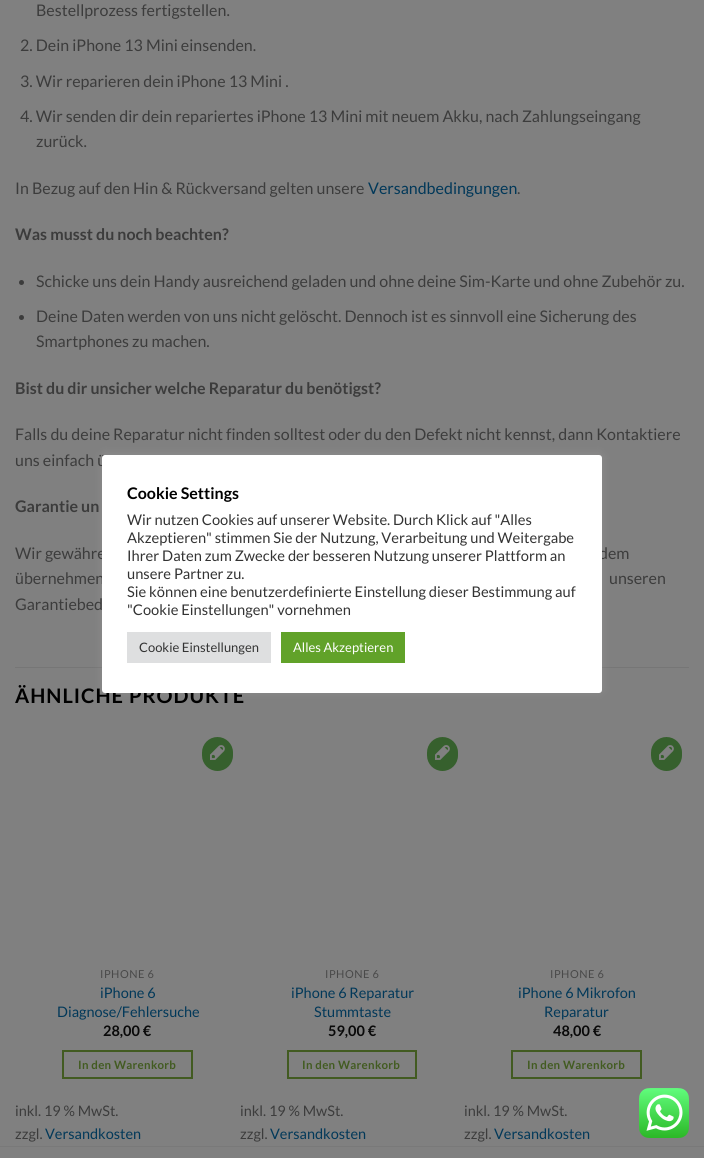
import math
import cairo



def draw_spaced(context, x, y, s, letter, word):
    context.move_to(x, y)
    for ch in s:
        context.show_text(ch)
        context.rel_move_to(letter + word * (ch == ' '), 0)


def rounded_rect(context, x, y, w, h, r):
    context.new_sub_path()
    for i, (u, v) in enumerate([(x + w - r, y + h - r), (x + r, y + h - r), (x + r, y + r), (x + w - r, y + r)]):
        context.arc(u, v, r, i * math.pi / 2, (i + 1) * math.pi / 2)
    context.close_path()


def draw_shadow(context, x, y, w, h, r, blur, alpha):
    context.push_group_with_content(cairo.Content.ALPHA)
    context.set_operator(cairo.Operator.SOURCE)
    for i in range(15, -16, -2):
        e = blur * i / 6
        if min(w, h) + 2 * e > 0:
            context.set_source_rgba(0, 0, 0, alpha * math.erfc((i - 1) / 8.5) / 2)
            rounded_rect(context, x - e, y - e, w + 2 * e, h + 2 * e, max(0, min(r + e + blur * .6, min(w, h) / 2 + e)))
            context.fill()
    context.mask(context.pop_group())


def draw_image(context, path, x, y, w, h):
    context.save()
    context.set_source_surface(cairo.ImageSurface.create_from_png(path), x, y)
    context.rectangle(x, y, w, h)
    context.fill()
    context.restore()


def draw(context):
    context.set_source_rgb(128 / 255, 128 / 255, 128 / 255)
    context.paint()
    context.set_source_rgb(60 / 255, 60 / 255, 60 / 255)
    context.arc(21.5, 282.5, 2.5, 0, 2 * math.pi)
    context.fill()
    context.arc(21.5, 317.5, 2.5, 0, 2 * math.pi)
    context.fill()
    context.set_source_rgb(118 / 255, 118 / 255, 118 / 255)
    context.rectangle(15, 667, 674, 1)
    context.fill()
    context.set_source_rgb(54 / 255, 96 / 255, 45 / 255)
    rounded_rect(context, 203, 738, 29, 32, 14.5)
    context.fill_preserve()
    context.stroke()
    draw_image(context, "images/1.png", 210, 745, 15, 15)
    context.rectangle(63, 1051, 129, 27)
    context.set_source_rgb(66 / 255, 91 / 255, 33 / 255)
    context.stroke()
    context.set_source_rgb(54 / 255, 96 / 255, 45 / 255)
    rounded_rect(context, 428, 738, 29, 32, 14.5)
    context.fill_preserve()
    context.stroke()
    draw_image(context, "images/1.png", 435, 745, 15, 15)
    context.rectangle(288, 1051, 128, 27)
    context.set_source_rgb(66 / 255, 91 / 255, 33 / 255)
    context.stroke()
    context.set_source_rgb(54 / 255, 96 / 255, 45 / 255)
    rounded_rect(context, 652, 738, 29, 32, 14.5)
    context.fill_preserve()
    context.stroke()
    draw_image(context, "images/1.png", 659, 745, 15, 15)
    context.rectangle(512, 1051, 129, 27)
    context.set_source_rgb(66 / 255, 91 / 255, 33 / 255)
    context.stroke()
    context.set_source_rgb(121 / 255, 121 / 255, 121 / 255)
    context.rectangle(0, 1146, 704, 1)
    context.fill()
    context.set_source_rgb(172 / 255, 171 / 255, 171 / 255)
    draw_shadow(context, 102, 454, 500, 238, 3, 5, 0.3)
    draw_image(context, "images/2.png", 639, 1088, 50, 50)
    context.select_font_face("Lato")
    context.set_font_size(16)
    context.set_source_rgb(60 / 255, 60 / 255, 60 / 255)
    context.move_to(36, 16)
    context.show_text("Bestellprozess fertigstellen.")
    context.move_to(20, 51)
    context.show_text("2. Dein iPhone 13 Mini einsenden.")
    context.move_to(20, 87)
    context.show_text("3. Wir reparieren dein iPhone 13 Mini .")
    context.move_to(20, 122)
    context.show_text("4. Wir senden dir dein repariertes iPhone 13 Mini mit neuem Akku, nach Zahlungseingang")
    context.move_to(36, 147)
    context.show_text("zurück.")
    context.move_to(15, 194)
    context.show_text("In Bezug auf den Hin & Rückversand gelten unsere")
    context.set_source_rgb(1 / 255, 56 / 255, 89 / 255)
    context.move_to(368, 194)
    context.show_text("Versandbedingungen")
    context.set_source_rgb(60 / 255, 60 / 255, 60 / 255)
    context.move_to(517, 194)
    context.show_text(".")
    context.select_font_face("Lato", cairo.FontSlant.NORMAL, cairo.FontWeight.BOLD)
    context.move_to(15, 240)
    context.show_text("Was musst du noch beachten?")
    context.select_font_face("Lato")
    context.move_to(36, 287)
    context.show_text("Schicke uns dein Handy ausreichend geladen und ohne deine Sim-Karte und ohne Zubehör zu.")
    context.move_to(36, 322)
    context.show_text("Deine Daten werden von uns nicht gelöscht. Dennoch ist es sinnvoll eine Sicherung des")
    context.move_to(36, 347)
    context.show_text("Smartphones zu machen.")
    context.select_font_face("Lato", cairo.FontSlant.NORMAL, cairo.FontWeight.BOLD)
    context.move_to(15, 394)
    context.show_text("Bist du dir unsicher welche Reparatur du benötigst?")
    context.select_font_face("Lato")
    context.move_to(15, 440)
    context.show_text("Falls du deine Reparatur nicht finden solltest oder du den Defekt nicht kennst, dann Kontaktiere")
    context.move_to(15, 466)
    context.show_text("uns einfach ü")
    context.select_font_face("Lato", cairo.FontSlant.NORMAL, cairo.FontWeight.BOLD)
    context.move_to(15, 512)
    context.show_text("Garantie un")
    context.select_font_face("Lato")
    context.move_to(15, 559)
    context.show_text("Wir gewähre")
    context.move_to(599, 559)
    context.show_text("dem")
    context.move_to(15, 584)
    context.show_text("übernehmen")
    context.move_to(609, 584)
    context.show_text("unseren")
    context.move_to(15, 610)
    context.show_text("Garantiebed")
    context.select_font_face("Lato", cairo.FontSlant.NORMAL, cairo.FontWeight.BOLD)
    context.set_font_size(20)
    context.set_source_rgb(0, 0, 0)
    draw_spaced(context, 15, 703, "ÄHNLICHE PRODUKTE", 1, 0)
    context.select_font_face("Lato")
    context.set_font_size(11)
    context.set_source_rgb(73 / 255, 73 / 255, 73 / 255)
    draw_spaced(context, 100, 978, "IPHONE 6", 0.5, 0)
    context.set_font_size(14.5)
    context.set_source_rgb(1 / 255, 56 / 255, 89 / 255)
    context.move_to(100, 998)
    context.show_text("iPhone 6")
    context.move_to(57, 1017)
    context.show_text("Diagnose/Fehlersuche")
    context.select_font_face("Lato", cairo.FontSlant.NORMAL, cairo.FontWeight.BOLD)
    context.set_source_rgb(9 / 255, 9 / 255, 9 / 255)
    context.move_to(103, 1036)
    context.show_text("28,00 €")
    context.set_font_size(11.5)
    context.set_source_rgb(66 / 255, 91 / 255, 33 / 255)
    draw_spaced(context, 78, 1069, "In den Warenkorb", 0.3, 0)
    context.select_font_face("Lato")
    context.set_font_size(14.5)
    context.set_source_rgb(60 / 255, 60 / 255, 60 / 255)
    context.move_to(15, 1116)
    context.show_text("inkl. 19 % MwSt.")
    context.move_to(15, 1139)
    context.show_text("zzgl.")
    context.set_source_rgb(1 / 255, 56 / 255, 89 / 255)
    context.move_to(45, 1139)
    context.show_text("Versandkosten")
    context.set_font_size(11)
    context.set_source_rgb(73 / 255, 73 / 255, 73 / 255)
    draw_spaced(context, 325, 978, "IPHONE 6", 0.5, 0)
    context.set_font_size(14.5)
    context.set_source_rgb(1 / 255, 56 / 255, 89 / 255)
    context.move_to(291, 998)
    context.show_text("iPhone 6 Reparatur")
    context.move_to(314, 1017)
    context.show_text("Stummtaste")
    context.select_font_face("Lato", cairo.FontSlant.NORMAL, cairo.FontWeight.BOLD)
    context.set_source_rgb(9 / 255, 9 / 255, 9 / 255)
    context.move_to(328, 1036)
    context.show_text("59,00 €")
    context.set_font_size(11.5)
    context.set_source_rgb(66 / 255, 91 / 255, 33 / 255)
    draw_spaced(context, 302, 1069, "In den Warenkorb", 0.3, 0)
    context.select_font_face("Lato")
    context.set_font_size(14.5)
    context.set_source_rgb(60 / 255, 60 / 255, 60 / 255)
    context.move_to(240, 1116)
    context.show_text("inkl. 19 % MwSt.")
    context.move_to(240, 1139)
    context.show_text("zzgl.")
    context.set_source_rgb(1 / 255, 56 / 255, 89 / 255)
    context.move_to(270, 1139)
    context.show_text("Versandkosten")
    context.set_font_size(11)
    context.set_source_rgb(73 / 255, 73 / 255, 73 / 255)
    draw_spaced(context, 550, 978, "IPHONE 6", 0.5, 0)
    context.set_font_size(14.5)
    context.set_source_rgb(1 / 255, 56 / 255, 89 / 255)
    context.move_to(518, 998)
    context.show_text("iPhone 6 Mikrofon")
    context.move_to(544, 1017)
    context.show_text("Reparatur")
    context.select_font_face("Lato", cairo.FontSlant.NORMAL, cairo.FontWeight.BOLD)
    context.set_source_rgb(9 / 255, 9 / 255, 9 / 255)
    context.move_to(553, 1036)
    context.show_text("48,00 €")
    context.set_font_size(11.5)
    context.set_source_rgb(66 / 255, 91 / 255, 33 / 255)
    draw_spaced(context, 527, 1069, "In den Warenkorb", 0.3, 0)
    context.select_font_face("Lato")
    context.set_font_size(14.5)
    context.set_source_rgb(60 / 255, 60 / 255, 60 / 255)
    context.move_to(464, 1116)
    context.show_text("inkl. 19 % MwSt.")
    context.move_to(464, 1139)
    context.show_text("zzgl.")
    context.set_source_rgb(1 / 255, 56 / 255, 89 / 255)
    context.move_to(494, 1139)
    context.show_text("Versandkosten")
    context.set_source_rgb(1, 1, 1)
    rounded_rect(context, 102, 455, 500, 238, 3)
    context.fill()
    context.select_font_face("Lato", cairo.FontSlant.NORMAL, cairo.FontWeight.BOLD)
    context.set_font_size(16)
    context.set_source_rgb(0, 0, 0)
    context.move_to(127, 499)
    context.show_text("Cookie Settings")
    context.select_font_face("Lato")
    context.set_font_size(14.7)
    context.set_source_rgb(51 / 255, 51 / 255, 51 / 255)
    context.move_to(127, 525)
    context.show_text("Wir nutzen Cookies auf unserer Website. Durch Klick auf \"Alles")
    context.move_to(127, 543)
    context.show_text("Akzeptieren\" stimmen Sie der Nutzung, Verarbeitung und Weitergabe")
    context.move_to(127, 561)
    context.show_text("Ihrer Daten zum Zwecke der besseren Nutzung unserer Plattform an")
    context.move_to(127, 579)
    context.show_text("unsere Partner zu.")
    context.move_to(127, 597)
    context.show_text("Sie können eine benutzerdefinierte Einstellung dieser Bestimmung auf")
    context.move_to(127, 615)
    context.show_text("\"Cookie Einstellungen\" vornehmen")
    context.set_source_rgb(222 / 255, 223 / 255, 224 / 255)
    context.rectangle(127, 632, 144, 31)
    context.fill()
    context.set_font_size(13)
    context.set_source_rgb(51 / 255, 51 / 255, 51 / 255)
    context.move_to(139, 652)
    context.show_text("Cookie Einstellungen")
    context.set_source_rgb(97 / 255, 162 / 255, 41 / 255)
    context.rectangle(281, 632, 124, 31)
    context.fill()
    context.set_source_rgb(1, 1, 1)
    context.move_to(293, 652)
    context.show_text("Alles Akzeptieren")


surface = cairo.ImageSurface(cairo.Format.RGB24, 704, 1158)
context = cairo.Context(surface)
options = cairo.FontOptions()
options.set_hint_metrics(cairo.HintMetrics.OFF)
options.set_hint_style(cairo.HintStyle.NONE)
context.set_font_options(options)
context.set_miter_limit(4)
draw(context)
surface.write_to_png("out.png")
